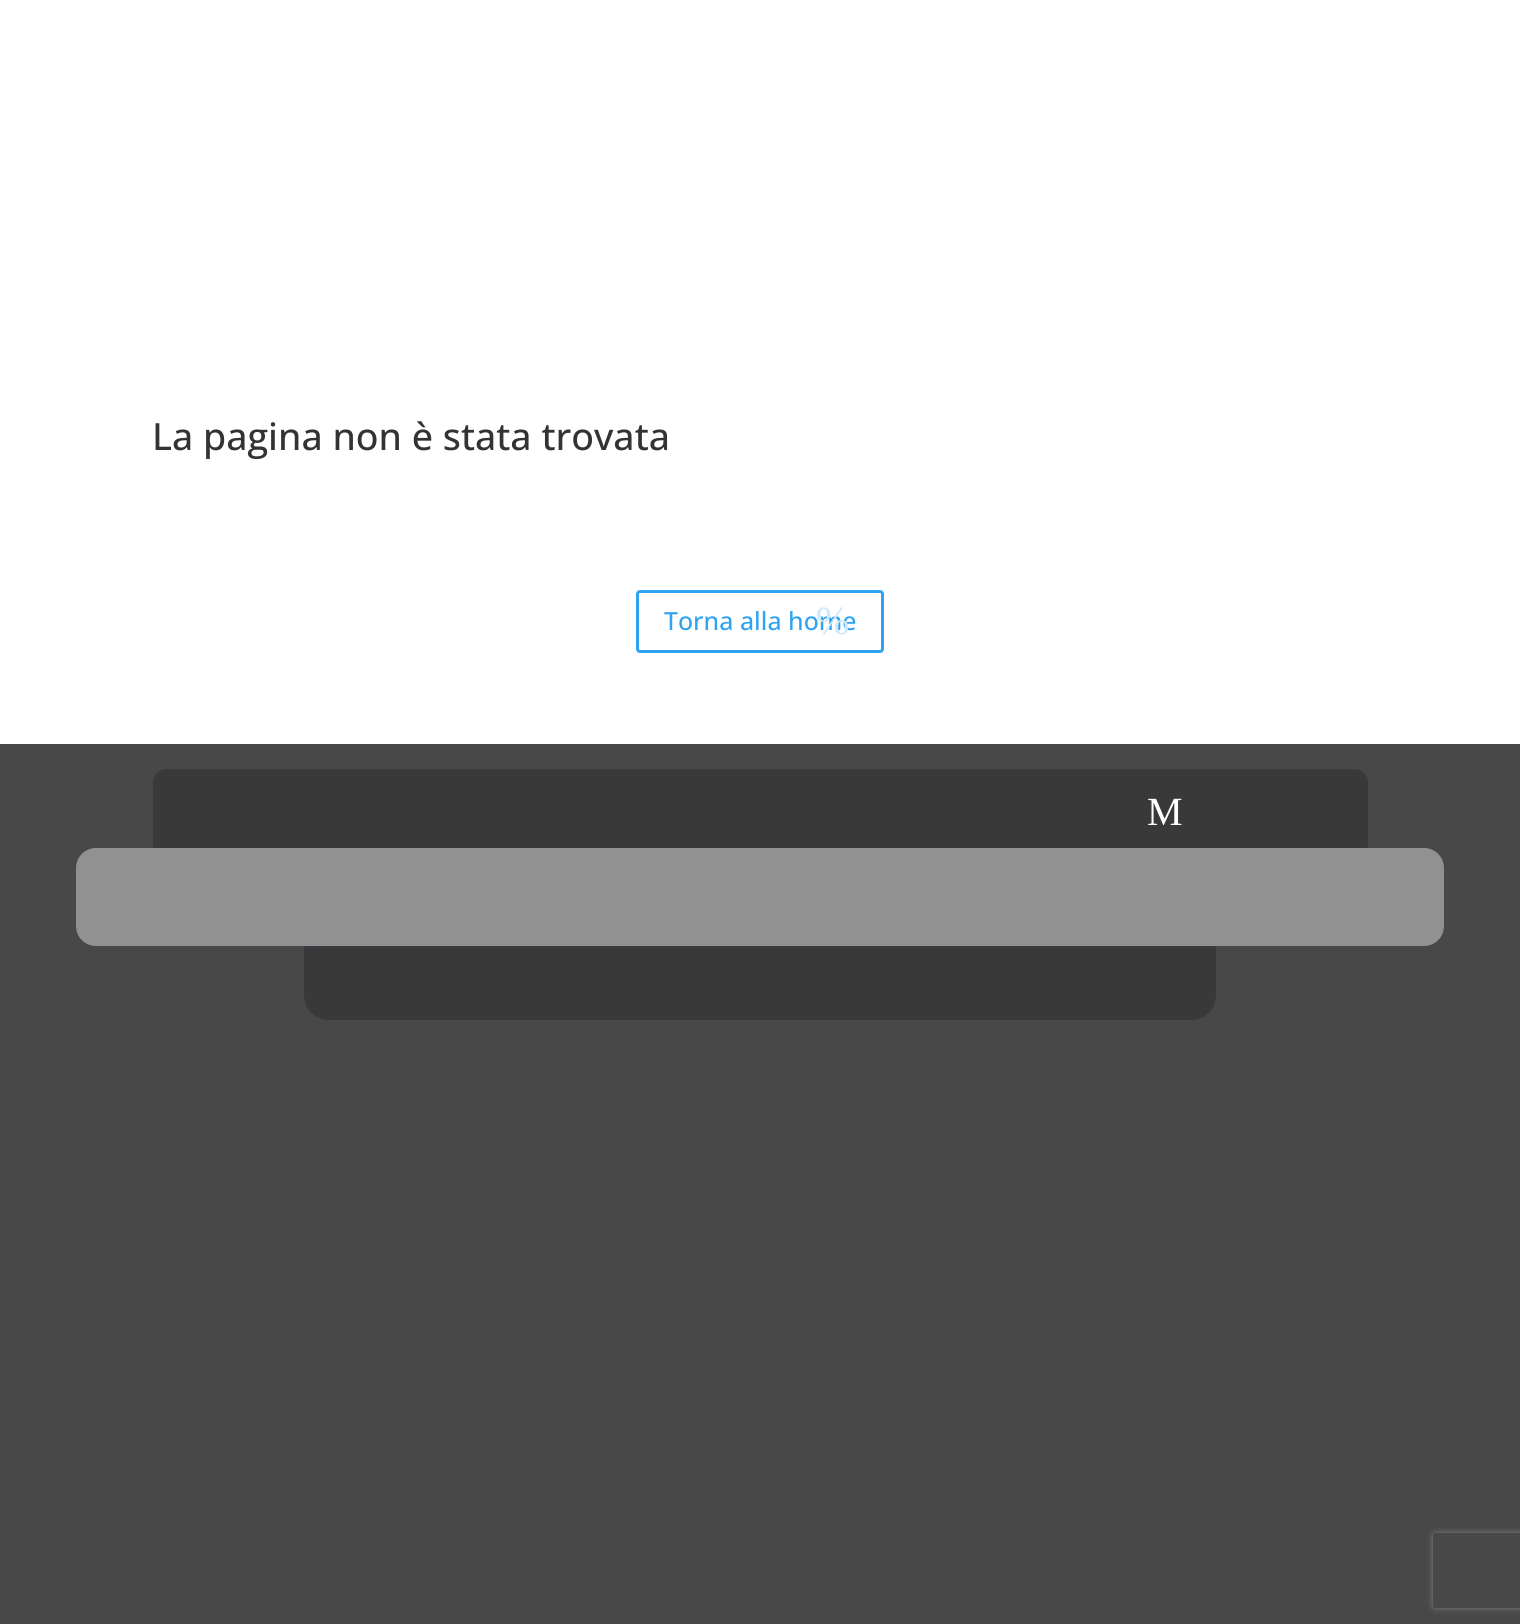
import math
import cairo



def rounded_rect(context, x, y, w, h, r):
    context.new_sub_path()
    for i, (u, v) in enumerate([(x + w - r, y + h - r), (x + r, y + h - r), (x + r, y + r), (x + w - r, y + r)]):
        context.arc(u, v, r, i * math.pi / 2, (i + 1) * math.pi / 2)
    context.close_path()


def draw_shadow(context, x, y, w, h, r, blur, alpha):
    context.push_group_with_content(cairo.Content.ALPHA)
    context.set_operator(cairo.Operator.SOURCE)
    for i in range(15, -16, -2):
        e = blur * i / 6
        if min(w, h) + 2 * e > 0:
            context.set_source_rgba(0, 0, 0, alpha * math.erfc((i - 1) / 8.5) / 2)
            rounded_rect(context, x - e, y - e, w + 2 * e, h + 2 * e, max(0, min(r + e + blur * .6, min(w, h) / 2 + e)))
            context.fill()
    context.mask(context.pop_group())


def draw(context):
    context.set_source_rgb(1, 1, 1)
    context.paint()
    rounded_rect(context, 637.5, 591.5, 245, 60, 2.5)
    context.set_source_rgb(46 / 255, 163 / 255, 242 / 255)
    context.set_line_width(3)
    context.stroke()
    context.set_source_rgb(72 / 255, 72 / 255, 72 / 255)
    context.rectangle(0, 744, 1520, 880)
    context.fill()
    context.set_source_rgb(57 / 255, 57 / 255, 57 / 255)
    context.new_path()
    context.move_to(166, 769)
    context.line_to(1355, 769)
    context.curve_to(1362, 769, 1368, 775, 1368, 782)
    context.line_to(1368, 848)
    context.line_to(153, 848)
    context.line_to(153, 782)
    context.curve_to(153, 775, 159, 769, 166, 769)
    context.close_path()
    context.fill()
    context.new_path()
    context.move_to(166, 769.5)
    context.line_to(1355, 769.5)
    context.curve_to(1362, 769.5, 1367.5, 775, 1367.5, 782)
    context.line_to(1367.5, 847.5)
    context.line_to(153.5, 847.5)
    context.line_to(153.5, 782)
    context.curve_to(153.5, 775, 159, 769.5, 166, 769.5)
    context.close_path()
    context.set_source_rgba(50 / 255, 63 / 255, 92 / 255, 0.3)
    context.set_line_width(1)
    context.stroke()
    context.set_source_rgba(1, 1, 1, 0.4)
    rounded_rect(context, 76, 848, 1368, 98, 20)
    context.fill()
    context.set_source_rgba(0, 0, 0, 0.21)
    context.new_path()
    context.move_to(304, 946)
    context.line_to(1216, 946)
    context.line_to(1216, 995)
    context.curve_to(1216, 1009, 1205, 1020, 1191, 1020)
    context.line_to(329, 1020)
    context.curve_to(315, 1020, 304, 1009, 304, 995)
    context.close_path()
    context.fill()
    context.new_path()
    context.move_to(304.5, 946.5)
    context.line_to(1215.5, 946.5)
    context.line_to(1215.5, 995)
    context.curve_to(1215.5, 1008.5, 1204.5, 1019.5, 1191, 1019.5)
    context.line_to(329, 1019.5)
    context.curve_to(315.5, 1019.5, 304.5, 1008.5, 304.5, 995)
    context.close_path()
    context.set_source_rgba(50 / 255, 63 / 255, 92 / 255, 0.3)
    context.stroke()
    context.save()
    context.set_fill_rule(cairo.FillRule.EVEN_ODD)
    context.new_path()
    context.move_to(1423, 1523)
    context.line_to(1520, 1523)
    context.line_to(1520, 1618)
    context.line_to(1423, 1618)
    context.close_path()
    context.move_to(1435.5, 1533)
    context.line_to(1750.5, 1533)
    context.curve_to(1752, 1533, 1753, 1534, 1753, 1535.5)
    context.line_to(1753, 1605.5)
    context.curve_to(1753, 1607, 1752, 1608, 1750.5, 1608)
    context.line_to(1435.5, 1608)
    context.curve_to(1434, 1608, 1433, 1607, 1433, 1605.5)
    context.line_to(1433, 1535.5)
    context.curve_to(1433, 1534, 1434, 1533, 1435.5, 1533)
    context.close_path()
    context.clip()
    context.set_source_rgb(128 / 255, 128 / 255, 128 / 255)
    draw_shadow(context, 1433, 1533, 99, 75, 2.5, 3, 1)
    context.restore()
    context.select_font_face("Open Sans Medium")
    context.set_font_size(37.5)
    context.set_source_rgb(51 / 255, 51 / 255, 51 / 255)
    context.move_to(152, 450)
    context.show_text("La pagina non è stata trovata")
    context.set_font_size(25)
    context.set_source_rgb(46 / 255, 163 / 255, 242 / 255)
    context.move_to(664, 630)
    context.show_text("Torna alla home")
    context.select_font_face("Liberation Serif")
    context.set_font_size(40)
    context.set_source_rgb(206 / 255, 233 / 255, 252 / 255)
    context.move_to(816, 634)
    context.show_text("%")
    context.set_source_rgb(1, 1, 1)
    context.move_to(1147, 825)
    context.show_text("M")


surface = cairo.ImageSurface(cairo.Format.RGB24, 1520, 1624)
context = cairo.Context(surface)
options = cairo.FontOptions()
options.set_hint_metrics(cairo.HintMetrics.OFF)
options.set_hint_style(cairo.HintStyle.NONE)
context.set_font_options(options)
context.set_miter_limit(4)
draw(context)
surface.write_to_png("out.png")
